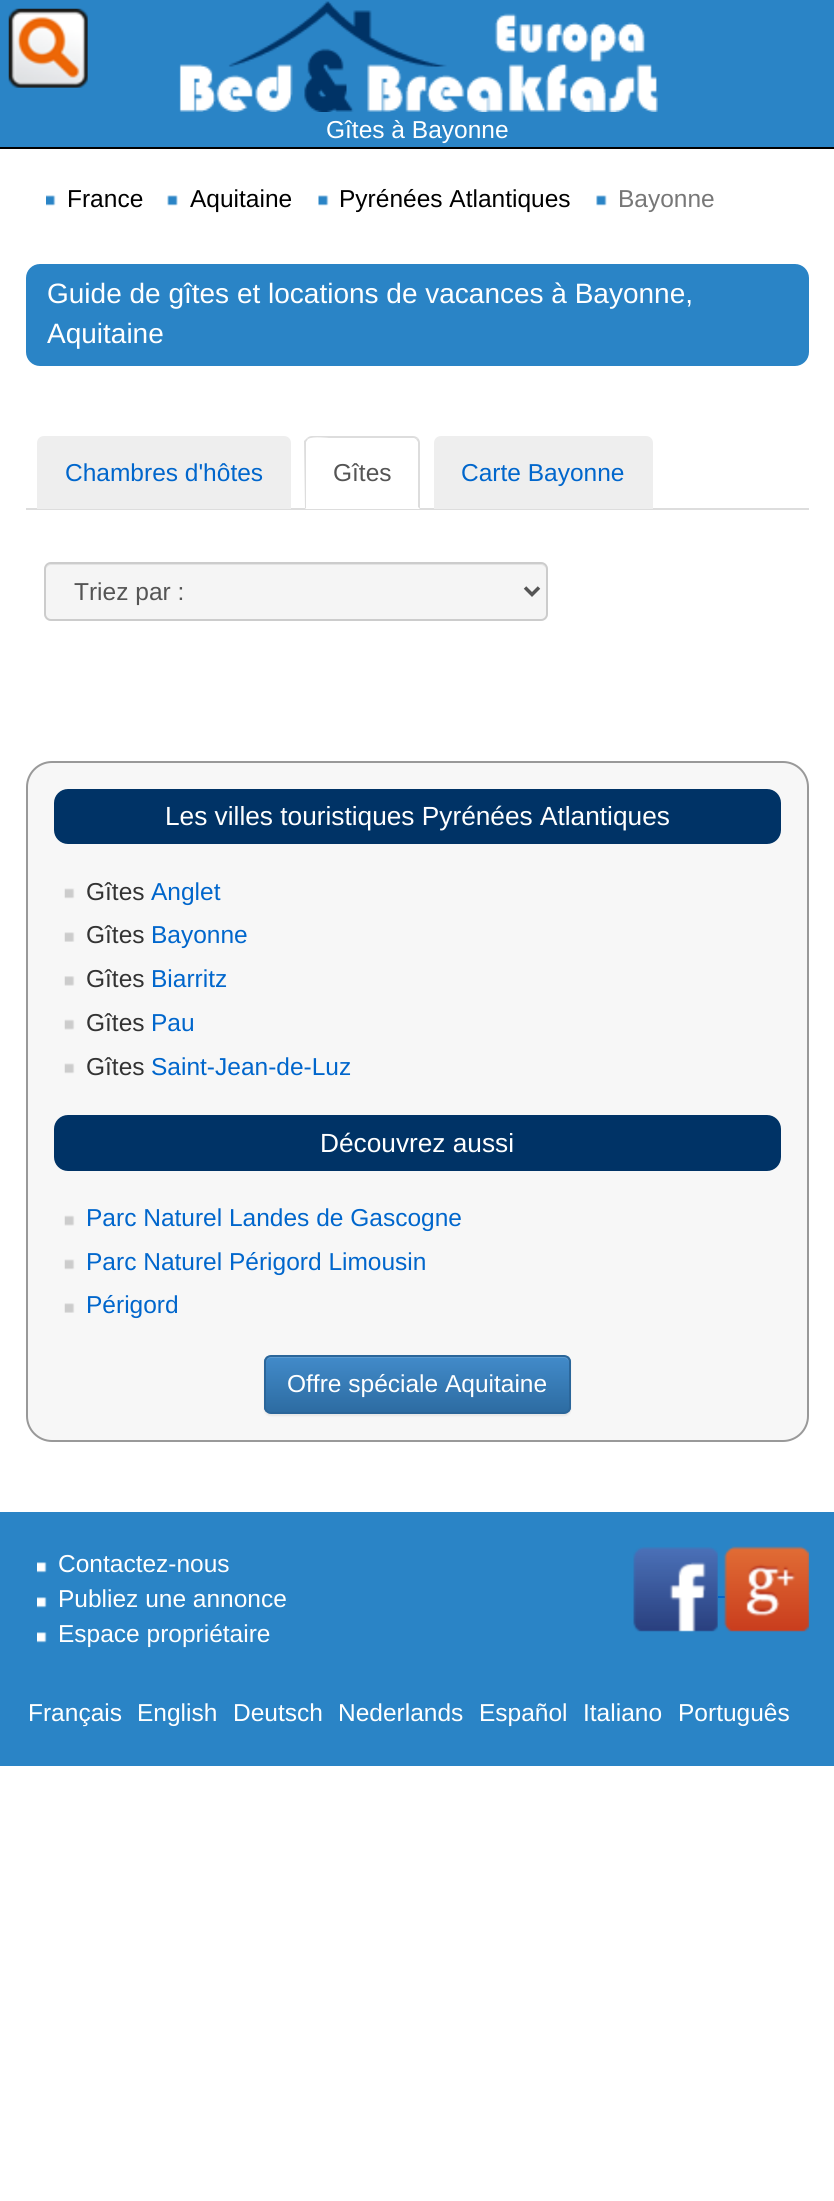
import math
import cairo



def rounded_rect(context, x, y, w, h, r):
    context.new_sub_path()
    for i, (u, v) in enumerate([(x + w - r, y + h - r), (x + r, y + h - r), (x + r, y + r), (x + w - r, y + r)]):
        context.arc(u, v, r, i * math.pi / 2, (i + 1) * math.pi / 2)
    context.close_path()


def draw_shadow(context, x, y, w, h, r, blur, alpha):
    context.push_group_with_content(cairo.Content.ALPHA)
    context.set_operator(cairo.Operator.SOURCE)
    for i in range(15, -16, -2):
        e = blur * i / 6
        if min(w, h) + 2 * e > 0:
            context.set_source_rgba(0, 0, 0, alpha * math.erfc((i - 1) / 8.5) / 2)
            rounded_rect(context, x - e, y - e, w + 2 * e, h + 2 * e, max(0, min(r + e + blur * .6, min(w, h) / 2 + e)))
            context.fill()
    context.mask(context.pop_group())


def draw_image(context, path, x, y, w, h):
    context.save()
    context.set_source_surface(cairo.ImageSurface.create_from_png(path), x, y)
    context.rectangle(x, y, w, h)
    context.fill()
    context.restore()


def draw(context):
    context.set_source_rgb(1, 1, 1)
    context.paint()
    context.set_source_rgb(42 / 255, 132 / 255, 198 / 255)
    context.rectangle(0, 0, 834, 147)
    context.fill()
    context.set_source_rgb(0, 0, 0)
    context.rectangle(0, 147, 834, 2)
    context.fill()
    draw_image(context, "images/1.png", 179, 1, 479, 111)
    draw_image(context, "images/2.png", 46, 195, 10, 11)
    draw_image(context, "images/3.png", 167, 195, 11, 11)
    draw_image(context, "images/4.png", 318, 195, 11, 11)
    draw_image(context, "images/5.png", 596, 195, 11, 11)
    draw_image(context, "images/6.png", 8, 8, 80, 80)
    context.set_source_rgb(42 / 255, 132 / 255, 198 / 255)
    rounded_rect(context, 26, 264, 783, 102, 14)
    context.fill()
    context.set_source_rgb(221 / 255, 221 / 255, 221 / 255)
    context.rectangle(26, 508, 783, 2)
    context.fill()
    context.set_source_rgb(238 / 255, 238 / 255, 238 / 255)
    context.new_path()
    context.move_to(44, 436)
    context.line_to(284, 436)
    context.curve_to(288, 436, 291, 439, 291, 443)
    context.line_to(291, 509)
    context.line_to(37, 509)
    context.line_to(37, 443)
    context.curve_to(37, 439, 40, 436, 44, 436)
    context.close_path()
    context.fill()
    context.set_source_rgb(1, 1, 1)
    context.new_path()
    context.move_to(312, 436)
    context.line_to(413, 436)
    context.curve_to(417, 436, 420, 439, 420, 443)
    context.line_to(420, 509)
    context.line_to(305, 509)
    context.line_to(305, 443)
    context.curve_to(305, 439, 308, 436, 312, 436)
    context.close_path()
    context.fill()
    context.set_source_rgb(221 / 255, 221 / 255, 221 / 255)
    context.new_path()
    context.move_to(312, 436)
    context.curve_to(310, 436, 308, 437, 307, 438)
    context.line_to(308, 439)
    context.curve_to(313, 436, 328, 438, 329, 438)
    context.line_to(414, 438)
    context.line_to(416, 439)
    context.line_to(418, 438)
    context.curve_to(417, 437, 415, 436, 413, 436)
    context.close_path()
    context.fill()
    context.new_path()
    context.move_to(418, 438)
    context.curve_to(419, 439, 420, 441, 420, 443)
    context.line_to(420, 509)
    context.line_to(418, 507)
    context.line_to(418, 442)
    context.line_to(416, 439)
    context.close_path()
    context.fill()
    context.new_path()
    context.move_to(304, 441)
    context.line_to(307, 438)
    context.line_to(308, 439)
    context.line_to(306, 442)
    context.line_to(306, 508)
    context.line_to(305, 509)
    context.close_path()
    context.fill()
    context.set_source_rgb(238 / 255, 238 / 255, 238 / 255)
    context.new_path()
    context.move_to(441, 436)
    context.line_to(646, 436)
    context.curve_to(650, 436, 653, 439, 653, 443)
    context.line_to(653, 509)
    context.line_to(434, 509)
    context.line_to(434, 443)
    context.curve_to(434, 439, 437, 436, 441, 436)
    context.close_path()
    context.fill()
    context.set_source_rgb(245 / 255, 245 / 255, 245 / 255)
    rounded_rect(context, 44, 562, 504, 59, 7)
    context.fill()
    context.set_source_rgb(227 / 255, 227 / 255, 227 / 255)
    context.new_path()
    context.move_to(51, 565)
    context.line_to(541, 565)
    context.curve_to(544, 565, 546, 568, 546, 570)
    context.curve_to(546, 567, 544, 564, 541, 564)
    context.line_to(51, 564)
    context.curve_to(48, 564, 46, 567, 46, 570)
    context.curve_to(46, 568, 48, 565, 51, 565)
    context.close_path()
    context.fill()
    rounded_rect(context, 45, 563, 502, 57, 6)
    context.set_source_rgb(204 / 255, 204 / 255, 204 / 255)
    context.stroke()
    context.new_path()
    context.move_to(525, 587.5)
    context.line_to(532, 594.5)
    context.line_to(539, 587.5)
    context.set_source_rgb(85 / 255, 85 / 255, 85 / 255)
    context.set_line_width(3.5)
    context.stroke()
    context.set_source_rgb(247 / 255, 247 / 255, 247 / 255)
    rounded_rect(context, 27, 762, 781, 679, 25)
    context.fill_preserve()
    context.set_source_rgb(153 / 255, 153 / 255, 153 / 255)
    context.set_line_width(2)
    context.stroke()
    context.set_source_rgb(0, 51 / 255, 102 / 255)
    rounded_rect(context, 54, 789, 727, 55, 14)
    context.fill()
    draw_image(context, "images/7.png", 64, 888, 11, 11)
    draw_image(context, "images/8.png", 64, 932, 11, 10)
    draw_image(context, "images/9.png", 64, 976, 11, 10)
    draw_image(context, "images/10.png", 64, 1019, 11, 11)
    draw_image(context, "images/7.png", 64, 1063, 11, 11)
    rounded_rect(context, 54, 1115, 727, 56, 14)
    context.fill()
    draw_image(context, "images/10.png", 64, 1215, 11, 11)
    draw_image(context, "images/7.png", 64, 1259, 11, 11)
    draw_image(context, "images/8.png", 64, 1303, 11, 10)
    context.set_source_rgb(0, 0, 0)
    draw_shadow(context, 264, 1356, 307, 60, 7, 1, 0.07)
    context.save()
    rounded_rect(context, 264, 1355, 307, 59, 7)
    context.clip()
    gradient = cairo.LinearGradient(417, 1356, 417, 1412)
    gradient.add_color_stop_rgba(0, 66 / 255, 139 / 255, 202 / 255, 1)
    gradient.add_color_stop_rgba(1, 45 / 255, 108 / 255, 162 / 255, 1)
    context.set_source(gradient)
    context.rectangle(264, 1356, 307, 56)
    context.fill()
    context.restore()
    context.set_source_rgba(1, 1, 1, 0.15)
    context.new_path()
    context.move_to(271, 1358)
    context.line_to(564, 1358)
    context.curve_to(566, 1358, 569, 1360, 569, 1363)
    context.curve_to(569, 1360, 568, 1356, 564, 1356)
    context.line_to(271, 1356)
    context.curve_to(267, 1356, 266, 1360, 266, 1363)
    context.curve_to(266, 1360, 268, 1358, 271, 1358)
    context.close_path()
    context.fill()
    rounded_rect(context, 265, 1356, 305, 57, 6)
    context.set_source_rgb(43 / 255, 102 / 255, 154 / 255)
    context.stroke()
    context.set_source_rgb(42 / 255, 132 / 255, 198 / 255)
    context.rectangle(0, 1512, 834, 254)
    context.fill()
    draw_image(context, "images/11.png", 37, 1562, 10, 11)
    draw_image(context, "images/11.png", 37, 1597, 10, 11)
    draw_image(context, "images/11.png", 37, 1632, 10, 11)
    draw_image(context, "images/12.png", 633, 1547, 85, 85)
    context.set_source_rgb(0, 102 / 255, 204 / 255)
    context.rectangle(718, 1596, 7, 2)
    context.fill()
    draw_image(context, "images/13.png", 723, 1546, 86, 86)
    context.select_font_face("Liberation Sans")
    context.set_font_size(24.5)
    context.set_source_rgb(1, 1, 1)
    context.move_to(326, 138)
    context.show_text("Gîtes à Bayonne")
    context.set_source_rgb(0, 0, 0)
    context.move_to(67, 207)
    context.show_text("France")
    context.move_to(190, 207)
    context.show_text("Aquitaine")
    context.move_to(339, 207)
    context.show_text("Pyrénées Atlantiques")
    context.set_source_rgb(119 / 255, 119 / 255, 119 / 255)
    context.move_to(618, 207)
    context.show_text("Bayonne")
    context.set_font_size(28)
    context.set_source_rgb(1, 1, 1)
    context.move_to(47, 303)
    context.show_text("Guide de gîtes et locations de vacances à Bayonne,")
    context.move_to(47, 343)
    context.show_text("Aquitaine")
    context.set_font_size(24.5)
    context.set_source_rgb(0, 102 / 255, 204 / 255)
    context.move_to(65, 481)
    context.show_text("Chambres d'hôtes")
    context.set_source_rgb(85 / 255, 85 / 255, 85 / 255)
    context.move_to(333, 481)
    context.show_text("Gîtes")
    context.set_source_rgb(0, 102 / 255, 204 / 255)
    context.move_to(461, 481)
    context.show_text("Carte Bayonne")
    context.set_source_rgb(85 / 255, 85 / 255, 85 / 255)
    context.move_to(74, 600)
    context.show_text("Triez par :")
    context.set_font_size(26.25)
    context.set_source_rgb(1, 1, 1)
    context.move_to(165, 825)
    context.show_text("Les villes touristiques Pyrénées Atlantiques")
    context.set_font_size(24.5)
    context.set_source_rgb(51 / 255, 51 / 255, 51 / 255)
    context.move_to(86, 900)
    context.show_text("Gîtes")
    context.set_source_rgb(0, 102 / 255, 204 / 255)
    context.move_to(151, 900)
    context.show_text("Anglet")
    context.set_source_rgb(51 / 255, 51 / 255, 51 / 255)
    context.move_to(86, 943)
    context.show_text("Gîtes")
    context.set_source_rgb(0, 102 / 255, 204 / 255)
    context.move_to(151, 943)
    context.show_text("Bayonne")
    context.set_source_rgb(51 / 255, 51 / 255, 51 / 255)
    context.move_to(86, 987)
    context.show_text("Gîtes")
    context.set_source_rgb(0, 102 / 255, 204 / 255)
    context.move_to(151, 987)
    context.show_text("Biarritz")
    context.set_source_rgb(51 / 255, 51 / 255, 51 / 255)
    context.move_to(86, 1031)
    context.show_text("Gîtes")
    context.set_source_rgb(0, 102 / 255, 204 / 255)
    context.move_to(151, 1031)
    context.show_text("Pau")
    context.set_source_rgb(51 / 255, 51 / 255, 51 / 255)
    context.move_to(86, 1075)
    context.show_text("Gîtes")
    context.set_source_rgb(0, 102 / 255, 204 / 255)
    context.move_to(151, 1075)
    context.show_text("Saint-Jean-de-Luz")
    context.set_font_size(26.25)
    context.set_source_rgb(1, 1, 1)
    context.move_to(320, 1152)
    context.show_text("Découvrez aussi")
    context.set_font_size(24.5)
    context.set_source_rgb(0, 102 / 255, 204 / 255)
    context.move_to(86, 1226)
    context.show_text("Parc Naturel Landes de Gascogne")
    context.move_to(86, 1270)
    context.show_text("Parc Naturel Périgord Limousin")
    context.move_to(86, 1313)
    context.show_text("Périgord")
    context.set_source_rgb(1, 1, 1)
    context.move_to(287, 1392)
    context.show_text("Offre spéciale Aquitaine")
    context.move_to(58, 1572)
    context.show_text("Contactez-nous")
    context.move_to(58, 1607)
    context.show_text("Publiez une annonce")
    context.move_to(58, 1642)
    context.show_text("Espace propriétaire")
    context.move_to(28, 1721)
    context.show_text("Français")
    context.move_to(137, 1721)
    context.show_text("English")
    context.move_to(233, 1721)
    context.show_text("Deutsch")
    context.move_to(338, 1721)
    context.show_text("Nederlands")
    context.move_to(479, 1721)
    context.show_text("Español")
    context.move_to(583, 1721)
    context.show_text("Italiano")
    context.move_to(678, 1721)
    context.show_text("Português")


surface = cairo.ImageSurface(cairo.Format.RGB24, 834, 2201)
context = cairo.Context(surface)
options = cairo.FontOptions()
options.set_hint_metrics(cairo.HintMetrics.OFF)
options.set_hint_style(cairo.HintStyle.NONE)
context.set_font_options(options)
context.set_miter_limit(4)
draw(context)
surface.write_to_png("out.png")
